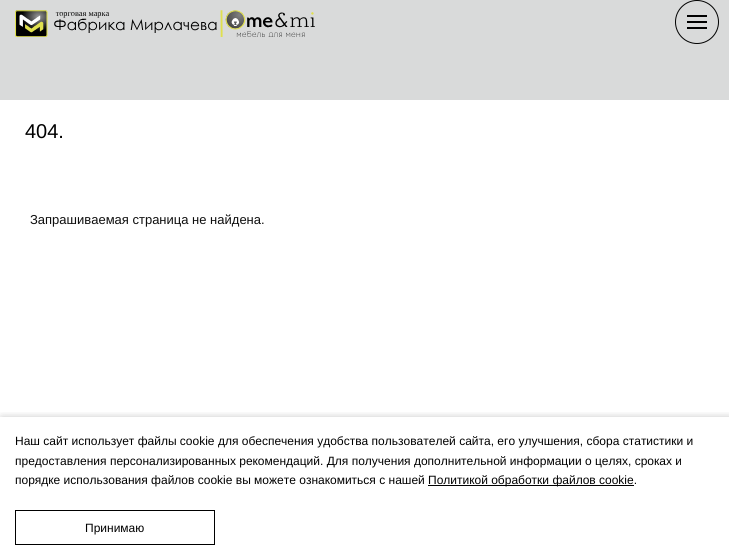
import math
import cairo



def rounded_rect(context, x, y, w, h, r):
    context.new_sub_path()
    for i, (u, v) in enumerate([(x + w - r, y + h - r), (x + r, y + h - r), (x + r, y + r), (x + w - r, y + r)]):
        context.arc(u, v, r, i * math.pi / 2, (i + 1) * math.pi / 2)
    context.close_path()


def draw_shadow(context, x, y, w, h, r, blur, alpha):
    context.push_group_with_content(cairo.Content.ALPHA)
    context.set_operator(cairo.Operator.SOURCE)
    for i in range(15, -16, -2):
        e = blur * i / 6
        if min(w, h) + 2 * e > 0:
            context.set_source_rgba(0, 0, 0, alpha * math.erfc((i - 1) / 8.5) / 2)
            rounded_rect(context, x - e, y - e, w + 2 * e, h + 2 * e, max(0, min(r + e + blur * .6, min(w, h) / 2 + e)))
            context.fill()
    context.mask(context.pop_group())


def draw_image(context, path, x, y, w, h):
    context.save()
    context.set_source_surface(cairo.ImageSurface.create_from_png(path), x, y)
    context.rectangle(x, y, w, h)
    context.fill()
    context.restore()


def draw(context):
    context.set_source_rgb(1, 1, 1)
    context.paint()
    context.set_source_rgb(217 / 255, 218 / 255, 218 / 255)
    context.rectangle(0, 0, 729, 100)
    context.fill()
    draw_image(context, "images/1.png", 15, 10, 300, 27)
    context.arc(697, 22, 21.5, 0, 2 * math.pi)
    context.set_source_rgb(0, 0, 0)
    context.set_line_width(1)
    context.stroke()
    context.rectangle(687, 15, 20, 2)
    context.fill()
    context.rectangle(687, 21, 20, 2)
    context.fill()
    context.rectangle(687, 27, 20, 2)
    context.fill()
    context.save()
    context.rectangle(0, 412, 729, 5)
    context.clip()
    context.set_source_rgb(0, 0, 0)
    draw_shadow(context, 2, 420, 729, 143, 0, 5, 0.4)
    context.restore()
    context.rectangle(428, 485, 206, 1)
    context.fill()
    context.rectangle(15.5, 510.5, 199, 34)
    context.stroke()
    context.select_font_face("Liberation Sans")
    context.set_font_size(20)
    context.move_to(25, 138)
    context.show_text("404.")
    context.set_font_size(13)
    context.set_source_rgb(14 / 255, 14 / 255, 14 / 255)
    context.move_to(30, 224)
    context.show_text("Запрашиваемая страница не найдена.")
    context.set_font_size(12)
    context.set_source_rgb(0, 0, 0)
    context.move_to(15, 445)
    context.show_text("Наш сайт использует файлы cookie для обеспечения удобства пользователей сайта, его улучшения, сбора статистики и")
    context.move_to(15, 465)
    context.show_text("предоставления персонализированных рекомендаций. Для получения дополнительной информации о целях, сроках и")
    context.move_to(15, 484)
    context.show_text("порядке использования файлов cookie вы можете ознакомиться с нашей")
    context.move_to(428, 484)
    context.show_text("Политикой обработки файлов cookie.")
    context.move_to(85, 532)
    context.show_text("Принимаю")


surface = cairo.ImageSurface(cairo.Format.RGB24, 729, 560)
context = cairo.Context(surface)
options = cairo.FontOptions()
options.set_hint_metrics(cairo.HintMetrics.OFF)
options.set_hint_style(cairo.HintStyle.NONE)
context.set_font_options(options)
context.set_miter_limit(4)
draw(context)
surface.write_to_png("out.png")
